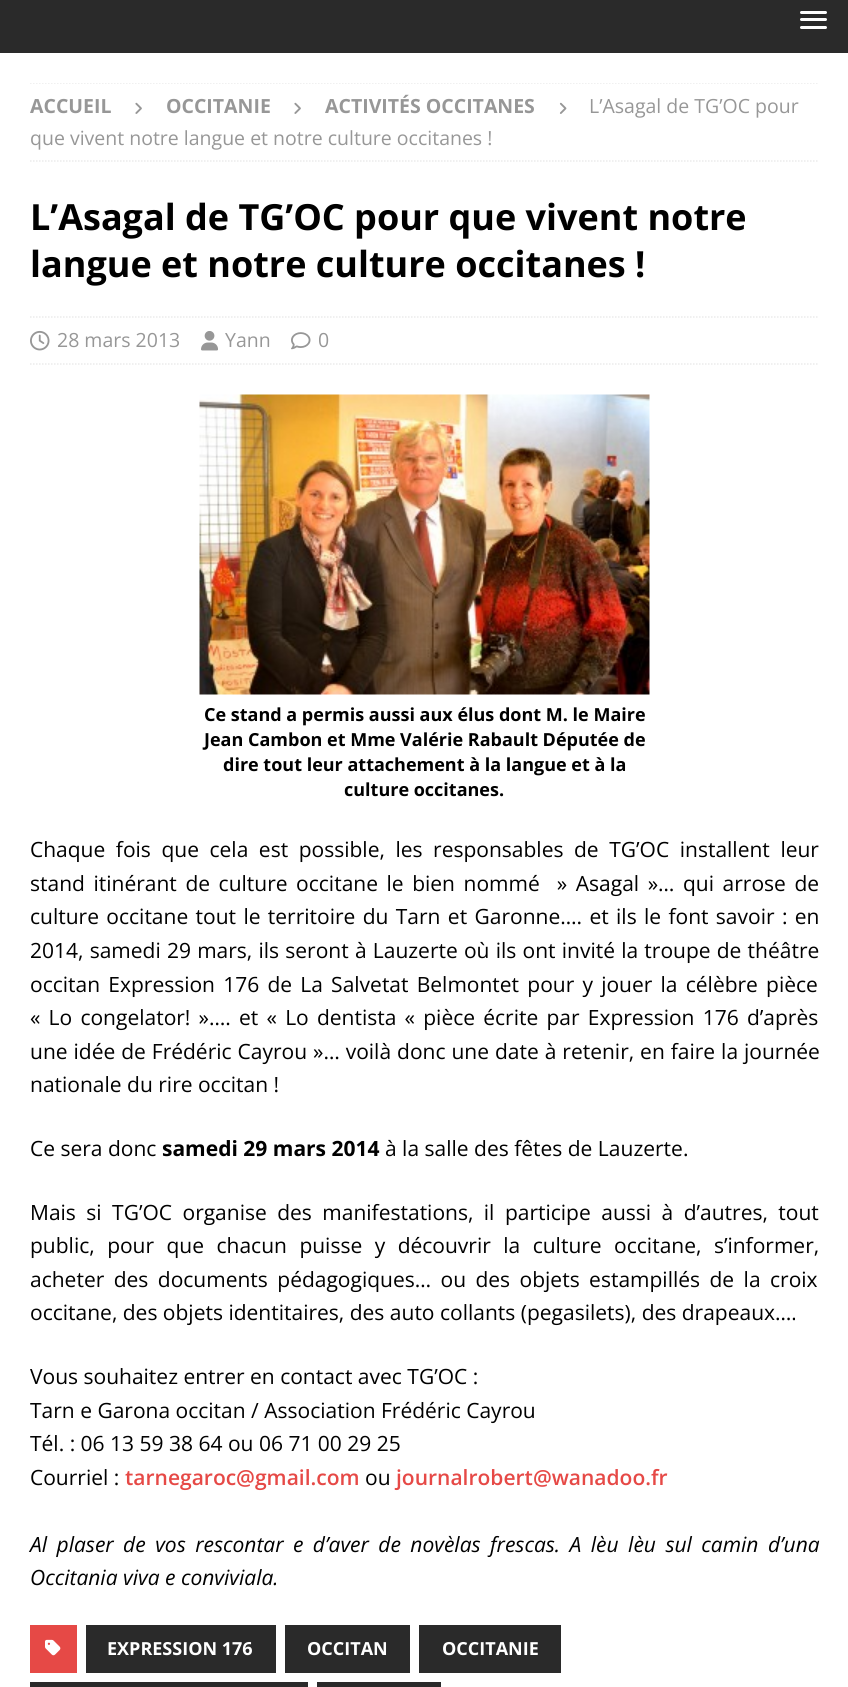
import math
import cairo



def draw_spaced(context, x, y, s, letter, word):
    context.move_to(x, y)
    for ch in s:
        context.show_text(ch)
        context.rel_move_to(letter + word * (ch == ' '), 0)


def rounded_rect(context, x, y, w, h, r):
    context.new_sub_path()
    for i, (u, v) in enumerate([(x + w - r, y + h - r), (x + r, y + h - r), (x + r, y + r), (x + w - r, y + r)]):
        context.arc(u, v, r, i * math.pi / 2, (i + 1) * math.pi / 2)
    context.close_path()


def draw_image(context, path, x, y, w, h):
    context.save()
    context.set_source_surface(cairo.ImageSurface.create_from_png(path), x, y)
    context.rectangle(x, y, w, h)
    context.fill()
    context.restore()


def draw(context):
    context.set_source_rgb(42 / 255, 42 / 255, 42 / 255)
    context.paint()
    context.set_source_rgb(1, 1, 1)
    rounded_rect(context, 800, 11, 27, 3, 1.5)
    context.fill()
    rounded_rect(context, 800, 18, 27, 3, 1.5)
    context.fill()
    rounded_rect(context, 800, 26, 27, 3, 1.5)
    context.fill()
    context.rectangle(0, 53, 848, 1634)
    context.fill()
    context.save()
    context.rectangle(30, 83, 789, 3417)
    context.clip()
    context.new_path()
    context.move_to(30, 83)
    context.line_to(819, 83)
    context.set_source_rgb(235 / 255, 235 / 255, 235 / 255)
    context.set_line_width(1.5)
    context.set_dash([1.5, 1.5])
    context.stroke()
    context.restore()
    context.new_path()
    context.move_to(30, 161)
    context.line_to(819, 161)
    context.set_source_rgb(235 / 255, 235 / 255, 235 / 255)
    context.set_line_width(1.5)
    context.set_dash([1.5, 1.5])
    context.stroke()
    draw_image(context, "images/1.png", 135, 102, 7, 12)
    draw_image(context, "images/1.png", 294, 102, 7, 12)
    draw_image(context, "images/2.png", 559, 102, 8, 12)
    context.new_path()
    context.move_to(30, 317)
    context.line_to(819, 317)
    context.stroke()
    context.new_path()
    context.move_to(30, 364)
    context.line_to(819, 364)
    context.stroke()
    draw_image(context, "images/3.png", 30, 330, 20, 21)
    draw_image(context, "images/4.png", 201, 331, 17, 20)
    draw_image(context, "images/5.png", 291, 332, 20, 18)
    draw_image(context, "images/6.png", 199, 394, 451, 301)
    context.set_source_rgb(230 / 255, 73 / 255, 70 / 255)
    context.rectangle(30, 1625, 47, 48)
    context.fill()
    draw_image(context, "images/7.png", 45, 1639, 16, 17)
    context.set_source_rgb(42 / 255, 42 / 255, 42 / 255)
    context.rectangle(86, 1625, 190, 48)
    context.fill()
    context.rectangle(285, 1625, 125, 48)
    context.fill()
    context.rectangle(419, 1625, 142, 48)
    context.fill()
    context.rectangle(30, 1682, 278, 5)
    context.fill()
    context.rectangle(317, 1682, 124, 5)
    context.fill()
    context.select_font_face("Open Sans", cairo.FontSlant.NORMAL, cairo.FontWeight.BOLD)
    context.set_font_size(19.5)
    context.set_source_rgb(151 / 255, 151 / 255, 151 / 255)
    context.move_to(30, 113)
    context.show_text("ACCUEIL")
    context.move_to(166, 113)
    context.show_text("OCCITANIE")
    context.move_to(325, 113)
    context.show_text("ACTIVITÉS OCCITANES")
    context.select_font_face("Open Sans")
    context.move_to(589, 113)
    context.show_text("L’Asagal de TG’OC pour")
    context.move_to(30, 145)
    context.show_text("que vivent notre langue et notre culture occitanes !")
    context.select_font_face("Open Sans", cairo.FontSlant.NORMAL, cairo.FontWeight.BOLD)
    context.set_font_size(36)
    context.set_source_rgb(0, 0, 0)
    context.move_to(30, 230)
    context.show_text("L’Asagal de TG’OC pour que vivent notre")
    context.move_to(30, 277)
    context.show_text("langue et notre culture occitanes !")
    context.select_font_face("Open Sans")
    context.set_font_size(19.5)
    context.set_source_rgb(151 / 255, 151 / 255, 151 / 255)
    context.move_to(57, 347)
    context.show_text("28 mars 2013")
    context.move_to(225, 347)
    context.show_text("Yann")
    context.move_to(318, 347)
    context.show_text("0")
    context.select_font_face("Open Sans", cairo.FontSlant.NORMAL, cairo.FontWeight.BOLD)
    context.set_font_size(18)
    context.set_source_rgb(0, 0, 0)
    context.move_to(204, 721)
    context.show_text("Ce stand a permis aussi aux élus dont M. le Maire")
    context.move_to(204, 746)
    context.show_text("Jean Cambon et Mme Valérie Rabault Députée de")
    context.move_to(223, 771)
    context.show_text("dire tout leur attachement à la langue et à la")
    context.move_to(344, 796)
    context.show_text("culture occitanes.")
    context.select_font_face("Open Sans")
    context.set_font_size(21)
    draw_spaced(context, 30, 857, "Chaque fois que cela est possible, les responsables de TG’OC installent leur", 0, 5.1)
    draw_spaced(context, 30, 891, "stand itinérant de culture occitane le bien nommé  » Asagal »… qui arrose de", 0, 3.1)
    draw_spaced(context, 30, 924, "culture occitane tout le territoire du Tarn et Garonne…. et ils le font savoir : en", 0, 1.9)
    draw_spaced(context, 30, 958, "2014, samedi 29 mars, ils seront à Lauzerte où ils ont invité la troupe de théâtre", 0, 0.75)
    draw_spaced(context, 30, 992, "occitan Expression 176 de La Salvetat Belmontet pour y jouer la célèbre pièce", 0, 2.75)
    draw_spaced(context, 30, 1025, "« Lo congelator! »…. et « Lo dentista « pièce écrite par Expression 176 d’après", 0, 2.75)
    draw_spaced(context, 30, 1059, "une idée de Frédéric Cayrou »… voilà donc une date à retenir, en faire la journée", 0, 0.5)
    context.move_to(30, 1092)
    context.show_text("nationale du rire occitan !")
    context.move_to(30, 1156)
    context.show_text("Ce sera donc")
    context.select_font_face("Open Sans", cairo.FontSlant.NORMAL, cairo.FontWeight.BOLD)
    context.move_to(162, 1156)
    context.show_text("samedi 29 mars 2014")
    context.select_font_face("Open Sans")
    context.move_to(385, 1156)
    context.show_text("à la salle des fêtes de Lauzerte.")
    draw_spaced(context, 30, 1220, "Mais si TG’OC organise des manifestations, il participe aussi à d’autres, tout", 0, 5)
    draw_spaced(context, 30, 1253, "public, pour que chacun puisse y découvrir la culture occitane, s’informer,", 0, 7)
    draw_spaced(context, 30, 1287, "acheter des documents pédagogiques… ou des objets estampillés de la croix", 0, 4)
    context.move_to(30, 1320)
    context.show_text("occitane, des objets identitaires, des auto collants (pegasilets), des drapeaux….")
    context.move_to(30, 1384)
    context.show_text("Vous souhaitez entrer en contact avec TG’OC :")
    context.move_to(30, 1418)
    context.show_text("Tarn e Garona occitan / Association Frédéric Cayrou")
    context.move_to(30, 1451)
    context.show_text("Tél. : 06 13 59 38 64 ou 06 71 00 29 25")
    context.move_to(30, 1485)
    context.show_text("Courriel :")
    context.select_font_face("Open Sans SemiBold")
    context.set_source_rgb(230 / 255, 73 / 255, 70 / 255)
    context.move_to(125, 1485)
    context.show_text("tarnegaroc@gmail.com")
    context.select_font_face("Open Sans")
    context.set_source_rgb(0, 0, 0)
    context.move_to(365, 1485)
    context.show_text("ou")
    context.select_font_face("Open Sans SemiBold")
    context.set_source_rgb(230 / 255, 73 / 255, 70 / 255)
    context.move_to(396, 1485)
    context.show_text("journalrobert@wanadoo.fr")
    context.select_font_face("Open Sans", cairo.FontSlant.ITALIC)
    context.set_source_rgb(0, 0, 0)
    draw_spaced(context, 30, 1552, "Al plaser de vos rescontar e d’aver de novèlas frescas. A lèu lèu sul camin d’una", 0, 4)
    context.move_to(30, 1585)
    context.show_text("Occitania viva e conviviala.")
    context.select_font_face("Open Sans", cairo.FontSlant.NORMAL, cairo.FontWeight.BOLD)
    context.set_font_size(18)
    context.set_source_rgb(1, 1, 1)
    context.move_to(107, 1655)
    context.show_text("EXPRESSION 176")
    context.move_to(307, 1655)
    context.show_text("OCCITAN")
    context.move_to(442, 1655)
    context.show_text("OCCITANIE")


surface = cairo.ImageSurface(cairo.Format.RGB24, 848, 1687)
context = cairo.Context(surface)
options = cairo.FontOptions()
options.set_hint_metrics(cairo.HintMetrics.OFF)
options.set_hint_style(cairo.HintStyle.NONE)
context.set_font_options(options)
context.set_miter_limit(4)
draw(context)
surface.write_to_png("out.png")
